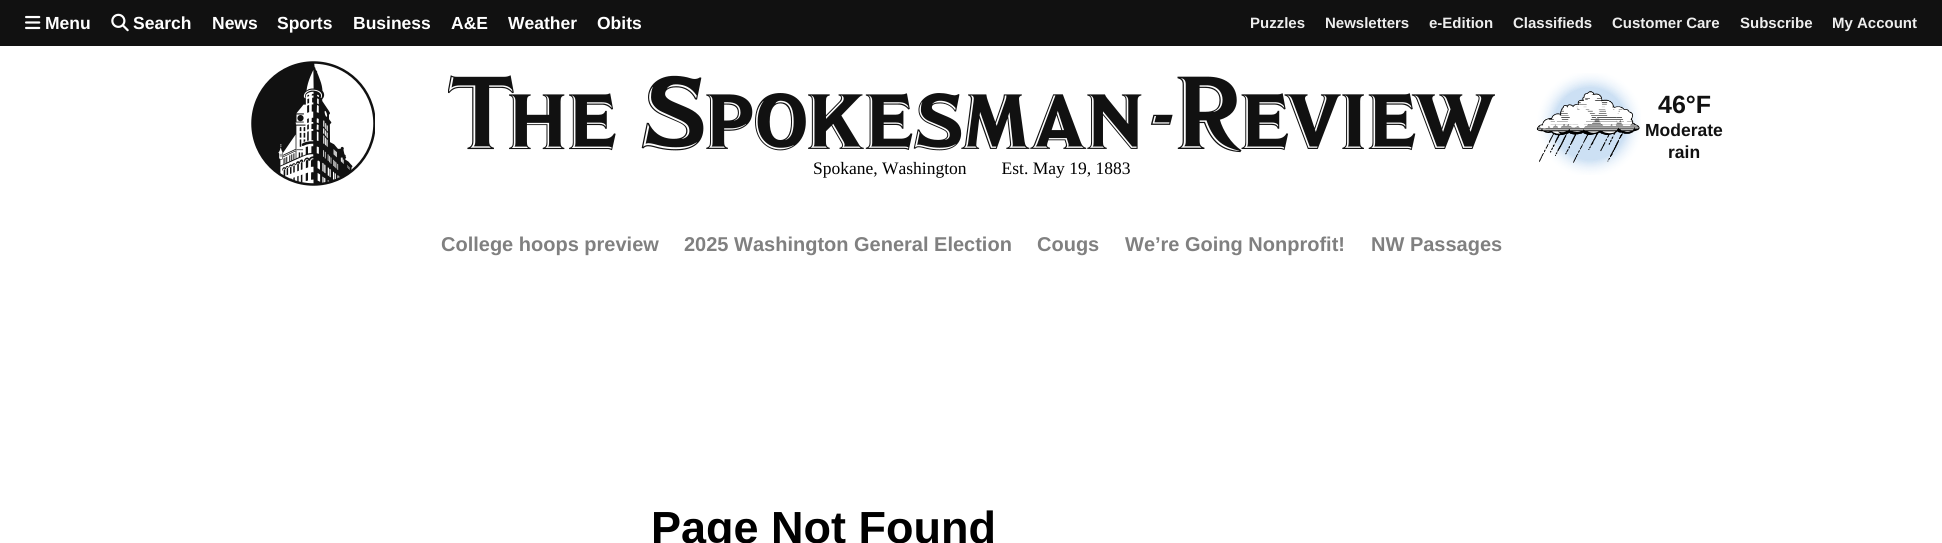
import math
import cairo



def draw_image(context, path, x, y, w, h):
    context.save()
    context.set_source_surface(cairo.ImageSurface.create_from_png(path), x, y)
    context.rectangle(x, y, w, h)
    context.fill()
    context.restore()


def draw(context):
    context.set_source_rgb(1, 1, 1)
    context.paint()
    context.set_source_rgb(17 / 255, 17 / 255, 17 / 255)
    context.rectangle(0, 0, 1942, 46)
    context.fill()
    draw_image(context, "images/1.png", 25, 15, 16, 15)
    draw_image(context, "images/2.png", 111, 13, 18, 19)
    draw_image(context, "images/3.png", 251, 61, 124, 125)
    draw_image(context, "images/4.png", 1536, 73, 105, 102)
    draw_image(context, "images/5.png", 448, 75, 1047, 78)
    context.select_font_face("Liberation Sans", cairo.FontSlant.NORMAL, cairo.FontWeight.BOLD)
    context.set_font_size(17.5)
    context.set_source_rgb(1, 1, 1)
    context.move_to(45, 29)
    context.show_text("Menu")
    context.move_to(133, 29)
    context.show_text("Search")
    context.move_to(212, 29)
    context.show_text("News")
    context.move_to(277, 29)
    context.show_text("Sports")
    context.move_to(353, 29)
    context.show_text("Business")
    context.move_to(451, 29)
    context.show_text("A&E")
    context.move_to(508, 29)
    context.show_text("Weather")
    context.move_to(597, 29)
    context.show_text("Obits")
    context.set_font_size(15)
    context.set_source_rgb(238 / 255, 238 / 255, 238 / 255)
    context.move_to(1250, 28)
    context.show_text("Puzzles")
    context.move_to(1325, 28)
    context.show_text("Newsletters")
    context.move_to(1429, 28)
    context.show_text("e-Edition")
    context.move_to(1513, 28)
    context.show_text("Classifieds")
    context.move_to(1612, 28)
    context.show_text("Customer Care")
    context.move_to(1740, 28)
    context.show_text("Subscribe")
    context.move_to(1832, 28)
    context.show_text("My Account")
    context.set_font_size(25)
    context.set_source_rgb(17 / 255, 17 / 255, 17 / 255)
    context.move_to(1658, 113)
    context.show_text("46°F")
    context.set_font_size(17.5)
    context.move_to(1645, 136)
    context.show_text("Moderate")
    context.move_to(1668, 158)
    context.show_text("rain")
    context.select_font_face("Liberation Serif")
    context.set_source_rgb(0, 0, 0)
    context.move_to(813, 174)
    context.show_text("Spokane, Washington  Est. May 19, 1883")
    context.select_font_face("Liberation Sans", cairo.FontSlant.NORMAL, cairo.FontWeight.BOLD)
    context.set_font_size(20)
    context.set_source_rgb(128 / 255, 128 / 255, 128 / 255)
    context.move_to(441, 251)
    context.show_text("College hoops preview")
    context.move_to(684, 251)
    context.show_text("2025 Washington General Election")
    context.move_to(1037, 251)
    context.show_text("Cougs")
    context.move_to(1125, 251)
    context.show_text("We’re Going Nonprofit!")
    context.move_to(1371, 251)
    context.show_text("NW Passages")
    context.set_font_size(45)
    context.set_source_rgb(0, 0, 0)
    context.move_to(651, 543)
    context.show_text("Page Not Found")


surface = cairo.ImageSurface(cairo.Format.RGB24, 1942, 543)
context = cairo.Context(surface)
options = cairo.FontOptions()
options.set_hint_metrics(cairo.HintMetrics.OFF)
options.set_hint_style(cairo.HintStyle.NONE)
context.set_font_options(options)
context.set_miter_limit(4)
draw(context)
surface.write_to_png("out.png")
